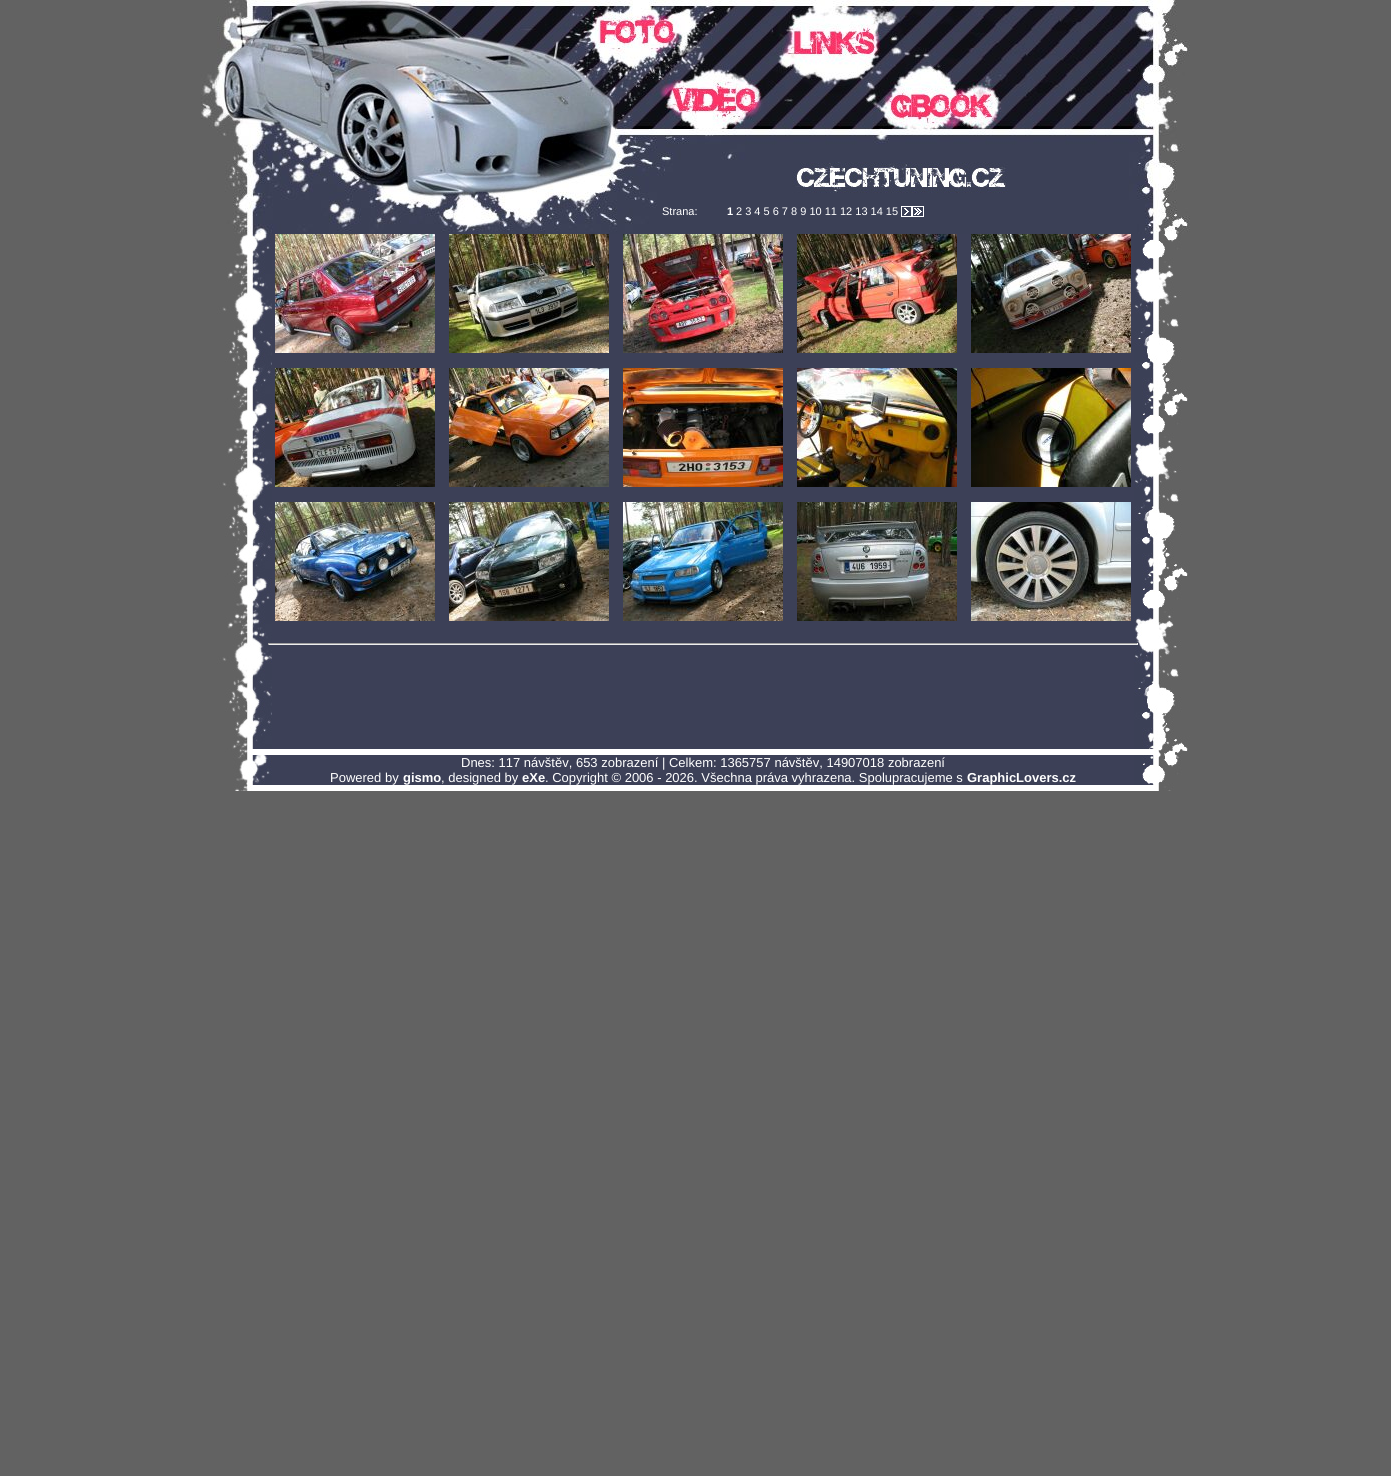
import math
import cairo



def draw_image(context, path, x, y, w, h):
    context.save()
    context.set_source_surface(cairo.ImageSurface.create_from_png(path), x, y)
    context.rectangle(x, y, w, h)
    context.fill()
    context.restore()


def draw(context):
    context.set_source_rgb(98 / 255, 98 / 255, 98 / 255)
    context.paint()
    draw_image(context, "images/1.png", 201, 0, 989, 234)
    draw_image(context, "images/2.png", 792, 162, 216, 31)
    draw_image(context, "images/3.png", 901, 206, 11, 11)
    draw_image(context, "images/4.png", 912, 206, 12, 11)
    context.set_source_rgb(60 / 255, 64 / 255, 87 / 255)
    context.rectangle(272, 234, 862, 551)
    context.fill()
    draw_image(context, "images/5.png", 201, 234, 71, 557)
    draw_image(context, "images/6.png", 1134, 234, 56, 557)
    draw_image(context, "images/7.png", 275, 234, 160, 119)
    draw_image(context, "images/8.png", 449, 234, 160, 119)
    draw_image(context, "images/9.png", 623, 234, 160, 119)
    draw_image(context, "images/10.png", 797, 234, 160, 119)
    draw_image(context, "images/11.png", 971, 234, 160, 119)
    draw_image(context, "images/12.png", 275, 368, 160, 119)
    draw_image(context, "images/13.png", 449, 368, 160, 119)
    draw_image(context, "images/14.png", 623, 368, 160, 119)
    draw_image(context, "images/15.png", 797, 368, 160, 119)
    draw_image(context, "images/16.png", 971, 368, 160, 119)
    draw_image(context, "images/17.png", 275, 502, 160, 119)
    draw_image(context, "images/18.png", 449, 502, 160, 119)
    draw_image(context, "images/19.png", 623, 502, 160, 119)
    draw_image(context, "images/20.png", 797, 502, 160, 119)
    draw_image(context, "images/21.png", 971, 502, 160, 119)
    context.set_source_rgb(159 / 255, 159 / 255, 159 / 255)
    context.rectangle(268, 643, 870, 1)
    context.fill()
    context.set_source_rgb(238 / 255, 238 / 255, 238 / 255)
    context.rectangle(1137, 643, 1, 2)
    context.fill()
    context.rectangle(268, 644, 870, 1)
    context.fill()
    context.set_source_rgb(159 / 255, 159 / 255, 159 / 255)
    context.rectangle(268, 643, 1, 2)
    context.fill()
    context.set_source_rgb(1, 1, 1)
    context.rectangle(252, 749, 902, 6)
    context.fill()
    context.rectangle(252, 785, 902, 6)
    context.fill()
    context.select_font_face("Liberation Sans")
    context.set_font_size(11)
    context.move_to(662, 215)
    context.show_text("Strana:")
    context.select_font_face("Liberation Sans", cairo.FontSlant.NORMAL, cairo.FontWeight.BOLD)
    context.move_to(727, 215)
    context.show_text("1")
    context.select_font_face("Liberation Sans")
    context.move_to(736, 215)
    context.show_text("2 3 4 5 6 7 8 9 10 11 12 13 14 15")
    context.set_font_size(13)
    context.move_to(461, 767)
    context.show_text("Dnes: 117 návštěv, 653 zobrazení | Celkem: 1365757 návštěv, 14907018 zobrazení")
    context.move_to(330, 782)
    context.show_text("Powered by")
    context.select_font_face("Liberation Sans", cairo.FontSlant.NORMAL, cairo.FontWeight.BOLD)
    context.move_to(403, 782)
    context.show_text("gismo")
    context.select_font_face("Liberation Sans")
    context.move_to(441, 782)
    context.show_text(", designed by")
    context.select_font_face("Liberation Sans", cairo.FontSlant.NORMAL, cairo.FontWeight.BOLD)
    context.move_to(522, 782)
    context.show_text("eXe")
    context.select_font_face("Liberation Sans")
    context.move_to(545, 782)
    context.show_text(". Copyright © 2006 - 2026. Všechna práva vyhrazena. Spolupracujeme s")
    context.select_font_face("Liberation Sans", cairo.FontSlant.NORMAL, cairo.FontWeight.BOLD)
    context.move_to(967, 782)
    context.show_text("GraphicLovers.cz")


surface = cairo.ImageSurface(cairo.Format.RGB24, 1391, 1476)
context = cairo.Context(surface)
options = cairo.FontOptions()
options.set_hint_metrics(cairo.HintMetrics.OFF)
options.set_hint_style(cairo.HintStyle.NONE)
context.set_font_options(options)
context.set_miter_limit(4)
draw(context)
surface.write_to_png("out.png")
